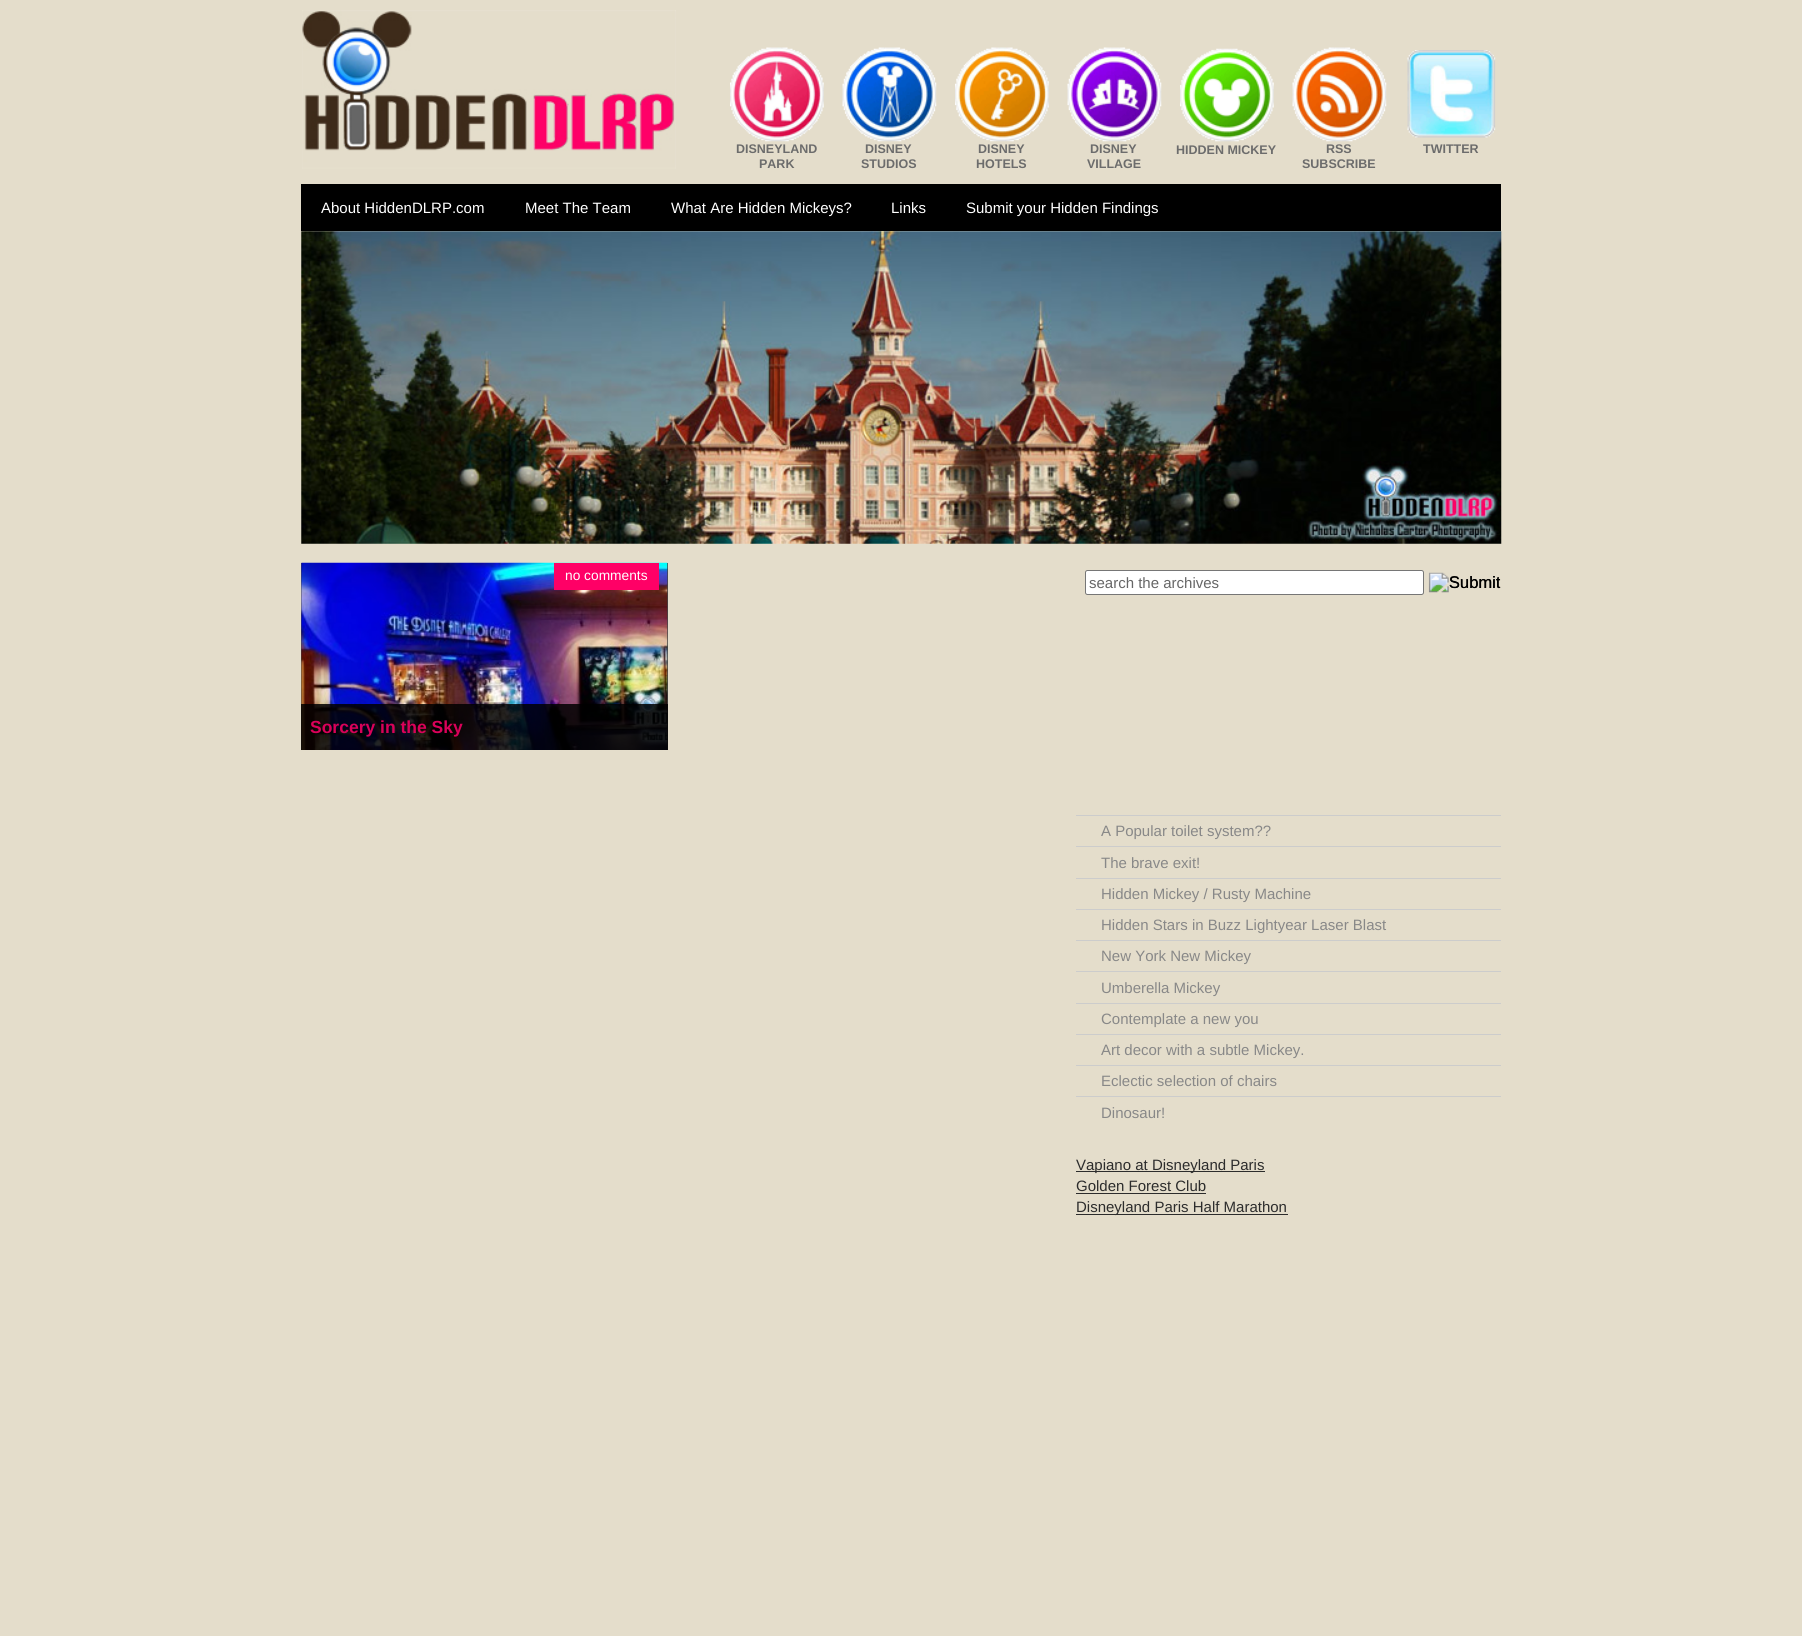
import math
import cairo



def rounded_rect(context, x, y, w, h, r):
    context.new_sub_path()
    for i, (u, v) in enumerate([(x + w - r, y + h - r), (x + r, y + h - r), (x + r, y + r), (x + w - r, y + r)]):
        context.arc(u, v, r, i * math.pi / 2, (i + 1) * math.pi / 2)
    context.close_path()


def draw_image(context, path, x, y, w, h):
    context.save()
    context.set_source_surface(cairo.ImageSurface.create_from_png(path), x, y)
    context.rectangle(x, y, w, h)
    context.fill()
    context.restore()


def draw(context):
    context.set_source_rgb(228 / 255, 221 / 255, 203 / 255)
    context.paint()
    draw_image(context, "images/1.png", 302, 10, 374, 159)
    draw_image(context, "images/2.png", 730, 47, 94, 95)
    draw_image(context, "images/3.png", 842, 47, 95, 95)
    draw_image(context, "images/4.png", 955, 47, 94, 95)
    draw_image(context, "images/5.png", 1067, 47, 95, 95)
    draw_image(context, "images/6.png", 1180, 48, 94, 94)
    draw_image(context, "images/7.png", 1292, 47, 95, 95)
    draw_image(context, "images/8.png", 1407, 50, 89, 88)
    context.set_source_rgb(0, 0, 0)
    context.rectangle(301, 184, 1200, 47)
    context.fill()
    draw_image(context, "images/9.png", 301, 231, 1201, 313)
    context.set_source_rgb(68 / 255, 68 / 255, 68 / 255)
    context.rectangle(301, 563, 367, 187)
    context.fill()
    draw_image(context, "images/10.png", 301, 562, 367, 188)
    context.set_source_rgb(1, 0, 102 / 255)
    context.rectangle(554, 563, 105, 27)
    context.fill()
    context.set_source_rgba(0, 0, 0, 0.85)
    context.rectangle(301, 704, 367, 46)
    context.fill()
    context.set_source_rgb(1, 1, 1)
    rounded_rect(context, 1085.5, 570.5, 338, 24, 2)
    context.fill_preserve()
    context.set_source_rgb(118 / 255, 118 / 255, 118 / 255)
    context.set_line_width(1)
    context.stroke()
    draw_image(context, "images/11.png", 1428, 572, 72, 21)
    context.set_source_rgb(204 / 255, 204 / 255, 204 / 255)
    context.rectangle(1076, 815, 425, 1)
    context.fill()
    context.rectangle(1076, 846, 425, 1)
    context.fill()
    context.rectangle(1076, 878, 425, 1)
    context.fill()
    context.rectangle(1076, 909, 425, 1)
    context.fill()
    context.rectangle(1076, 940, 425, 1)
    context.fill()
    context.rectangle(1076, 971, 425, 1)
    context.fill()
    context.rectangle(1076, 1003, 425, 1)
    context.fill()
    context.rectangle(1076, 1034, 425, 1)
    context.fill()
    context.rectangle(1076, 1065, 425, 1)
    context.fill()
    context.rectangle(1076, 1096, 425, 1)
    context.fill()
    context.set_source_rgb(44 / 255, 44 / 255, 44 / 255)
    context.rectangle(1076, 1171, 189, 1)
    context.fill()
    context.rectangle(1076, 1193, 130, 1)
    context.fill()
    context.rectangle(1076, 1214, 212, 1)
    context.fill()
    context.select_font_face("Liberation Sans", cairo.FontSlant.NORMAL, cairo.FontWeight.BOLD)
    context.set_font_size(12.5)
    context.set_source_rgb(108 / 255, 108 / 255, 108 / 255)
    context.move_to(736, 153)
    context.show_text("DISNEYLAND")
    context.move_to(759, 168)
    context.show_text("PARK")
    context.move_to(865, 153)
    context.show_text("DISNEY")
    context.move_to(861, 168)
    context.show_text("STUDIOS")
    context.move_to(978, 153)
    context.show_text("DISNEY")
    context.move_to(976, 168)
    context.show_text("HOTELS")
    context.move_to(1090, 153)
    context.show_text("DISNEY")
    context.move_to(1087, 168)
    context.show_text("VILLAGE")
    context.move_to(1176, 154)
    context.show_text("HIDDEN MICKEY")
    context.move_to(1326, 153)
    context.show_text("RSS")
    context.move_to(1302, 168)
    context.show_text("SUBSCRIBE")
    context.move_to(1423, 153)
    context.show_text("TWITTER")
    context.select_font_face("Liberation Sans")
    context.set_font_size(15)
    context.set_source_rgb(1, 1, 1)
    context.move_to(321, 213)
    context.show_text("About HiddenDLRP.com")
    context.move_to(525, 213)
    context.show_text("Meet The Team")
    context.move_to(671, 213)
    context.show_text("What Are Hidden Mickeys?")
    context.move_to(891, 213)
    context.show_text("Links")
    context.move_to(966, 213)
    context.show_text("Submit your Hidden Findings")
    context.set_font_size(13.75)
    context.move_to(565, 580)
    context.show_text("no comments")
    context.select_font_face("Liberation Sans", cairo.FontSlant.NORMAL, cairo.FontWeight.BOLD)
    context.set_font_size(17.5)
    context.set_source_rgb(218 / 255, 1 / 255, 89 / 255)
    context.move_to(310, 733)
    context.show_text("Sorcery in the Sky")
    context.select_font_face("Liberation Sans")
    context.set_font_size(15)
    context.set_source_rgb(102 / 255, 102 / 255, 102 / 255)
    context.move_to(1089, 588)
    context.show_text("search the archives")
    context.set_font_size(16.5)
    context.set_source_rgb(0, 0, 0)
    context.move_to(1449, 588)
    context.show_text("Submit")
    context.set_font_size(15)
    context.set_source_rgb(136 / 255, 136 / 255, 136 / 255)
    context.move_to(1101, 836)
    context.show_text("A Popular toilet system??")
    context.move_to(1101, 868)
    context.show_text("The brave exit!")
    context.move_to(1101, 899)
    context.show_text("Hidden Mickey / Rusty Machine")
    context.move_to(1101, 930)
    context.show_text("Hidden Stars in Buzz Lightyear Laser Blast")
    context.move_to(1101, 961)
    context.show_text("New York New Mickey")
    context.move_to(1101, 993)
    context.show_text("Umberella Mickey")
    context.move_to(1101, 1024)
    context.show_text("Contemplate a new you")
    context.move_to(1101, 1055)
    context.show_text("Art decor with a subtle Mickey.")
    context.move_to(1101, 1086)
    context.show_text("Eclectic selection of chairs")
    context.move_to(1101, 1118)
    context.show_text("Dinosaur!")
    context.set_source_rgb(44 / 255, 44 / 255, 44 / 255)
    context.move_to(1076, 1170)
    context.show_text("Vapiano at Disneyland Paris")
    context.move_to(1076, 1191)
    context.show_text("Golden Forest Club")
    context.move_to(1076, 1212)
    context.show_text("Disneyland Paris Half Marathon")


surface = cairo.ImageSurface(cairo.Format.RGB24, 1802, 1636)
context = cairo.Context(surface)
options = cairo.FontOptions()
options.set_hint_metrics(cairo.HintMetrics.OFF)
options.set_hint_style(cairo.HintStyle.NONE)
context.set_font_options(options)
context.set_miter_limit(4)
draw(context)
surface.write_to_png("out.png")
